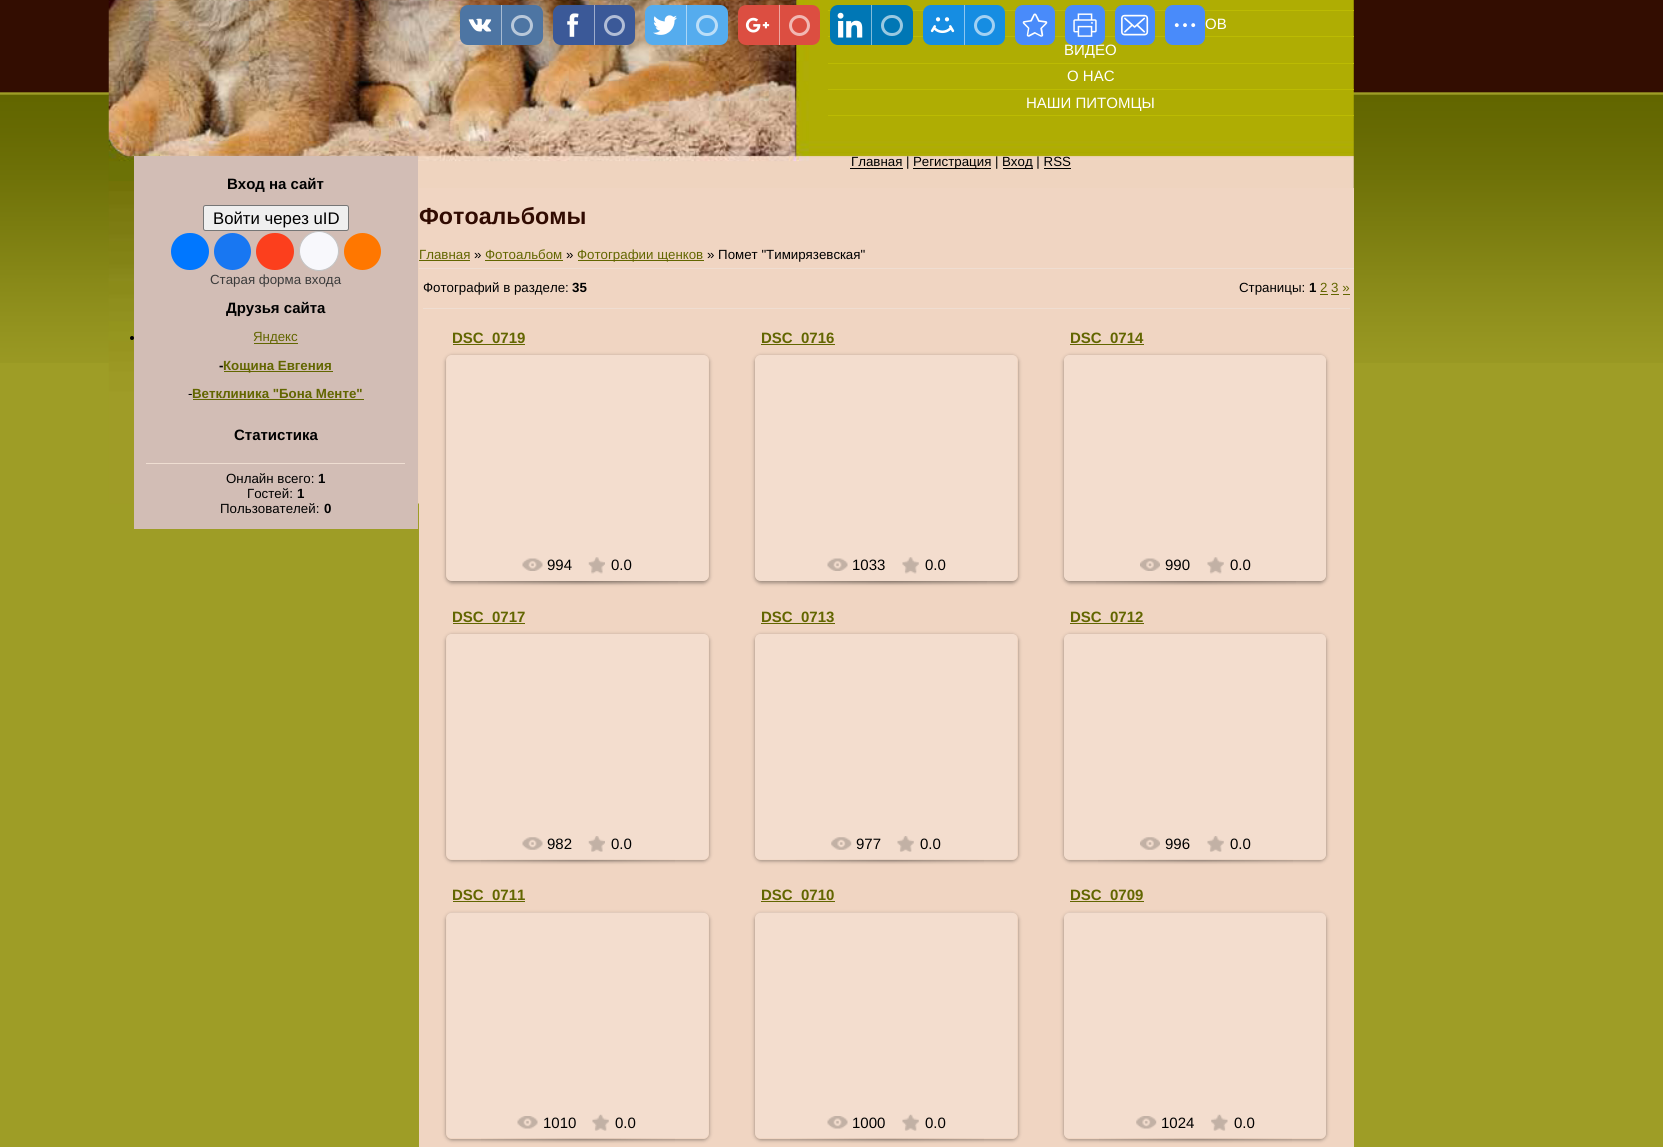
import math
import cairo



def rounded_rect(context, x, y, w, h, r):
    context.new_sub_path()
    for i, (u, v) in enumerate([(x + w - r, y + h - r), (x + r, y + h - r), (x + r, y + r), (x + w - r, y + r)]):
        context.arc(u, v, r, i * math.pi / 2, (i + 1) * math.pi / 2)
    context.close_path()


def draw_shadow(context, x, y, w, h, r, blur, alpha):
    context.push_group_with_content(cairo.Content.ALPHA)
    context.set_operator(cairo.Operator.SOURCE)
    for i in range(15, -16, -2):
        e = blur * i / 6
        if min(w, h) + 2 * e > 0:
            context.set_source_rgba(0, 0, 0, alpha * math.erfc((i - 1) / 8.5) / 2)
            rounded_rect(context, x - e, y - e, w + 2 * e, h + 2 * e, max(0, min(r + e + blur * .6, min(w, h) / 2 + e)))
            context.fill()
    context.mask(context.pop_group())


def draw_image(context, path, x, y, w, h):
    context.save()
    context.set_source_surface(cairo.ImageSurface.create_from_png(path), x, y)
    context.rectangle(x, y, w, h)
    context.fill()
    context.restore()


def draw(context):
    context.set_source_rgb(158 / 255, 157 / 255, 38 / 255)
    context.paint()
    draw_image(context, "images/11.png", 0, 0, 1663, 363)
    draw_image(context, "images/12.png", 108, 0, 1246, 504)
    context.set_source_rgb(77 / 255, 117 / 255, 163 / 255)
    rounded_rect(context, 460, 5, 83, 40, 8)
    context.fill()
    draw_image(context, "images/1.png", 468, 18, 24, 14)
    context.set_source_rgb(166 / 255, 186 / 255, 209 / 255)
    context.rectangle(501, 5, 1, 40)
    context.fill()
    rounded_rect(context, 512.5, 16.5, 19, 18, 9)
    context.set_source_rgb(184 / 255, 200 / 255, 218 / 255)
    context.set_line_width(3)
    context.stroke()
    context.set_source_rgb(59 / 255, 89 / 255, 152 / 255)
    rounded_rect(context, 553, 5, 82, 40, 8)
    context.fill()
    draw_image(context, "images/2.png", 567, 13, 12, 24)
    context.set_source_rgb(157 / 255, 172 / 255, 204 / 255)
    context.rectangle(594, 5, 1, 40)
    context.fill()
    context.arc(614.5, 25.5, 9, 0, 2 * math.pi)
    context.set_source_rgb(177 / 255, 189 / 255, 214 / 255)
    context.stroke()
    context.set_source_rgb(85 / 255, 172 / 255, 238 / 255)
    rounded_rect(context, 645, 5, 83, 40, 8)
    context.fill()
    draw_image(context, "images/3.png", 653, 15, 24, 20)
    context.set_source_rgb(170 / 255, 214 / 255, 247 / 255)
    context.rectangle(686, 5, 1, 40)
    context.fill()
    rounded_rect(context, 697.5, 16.5, 19, 18, 9)
    context.set_source_rgb(187 / 255, 222 / 255, 248 / 255)
    context.stroke()
    context.set_source_rgb(220 / 255, 78 / 255, 65 / 255)
    rounded_rect(context, 738, 5, 82, 40, 8)
    context.fill()
    draw_image(context, "images/4.png", 745, 17, 25, 16)
    context.set_source_rgb(238 / 255, 167 / 255, 160 / 255)
    context.rectangle(779, 5, 1, 40)
    context.fill()
    context.arc(799.5, 25.5, 9, 0, 2 * math.pi)
    context.set_source_rgb(241 / 255, 184 / 255, 179 / 255)
    context.stroke()
    context.set_source_rgb(188 / 255, 187 / 255, 2 / 255)
    context.rectangle(828, 10, 526, 1)
    context.fill()
    context.rectangle(828, 36, 526, 1)
    context.fill()
    context.set_source_rgb(0, 119 / 255, 181 / 255)
    rounded_rect(context, 830, 5, 83, 40, 8)
    context.fill()
    draw_image(context, "images/5.png", 837, 12, 26, 26)
    context.set_source_rgb(128 / 255, 187 / 255, 218 / 255)
    context.rectangle(871, 5, 1, 40)
    context.fill()
    rounded_rect(context, 882.5, 16.5, 19, 18, 9)
    context.set_source_rgb(153 / 255, 201 / 255, 225 / 255)
    context.stroke()
    context.set_source_rgb(22 / 255, 141 / 255, 226 / 255)
    rounded_rect(context, 923, 5, 82, 40, 8)
    context.fill()
    draw_image(context, "images/6.png", 930, 17, 25, 17)
    context.set_source_rgb(139 / 255, 198 / 255, 241 / 255)
    context.rectangle(964, 5, 1, 40)
    context.fill()
    context.arc(984.5, 25.5, 9, 0, 2 * math.pi)
    context.set_source_rgb(162 / 255, 209 / 255, 243 / 255)
    context.stroke()
    context.set_source_rgb(73 / 255, 139 / 255, 250 / 255)
    rounded_rect(context, 1015, 5, 40, 40, 8)
    context.fill()
    draw_image(context, "images/7.png", 1022, 13, 26, 24)
    rounded_rect(context, 1165, 5, 40, 40, 8)
    context.fill()
    draw_image(context, "images/10.png", 1174, 23, 22, 5)
    context.set_source_rgb(188 / 255, 187 / 255, 2 / 255)
    context.rectangle(828, 63, 526, 1)
    context.fill()
    context.rectangle(828, 89, 526, 1)
    context.fill()
    context.rectangle(828, 115, 526, 1)
    context.fill()
    context.set_source_rgb(0, 0, 0)
    context.rectangle(850, 168, 53, 1)
    context.fill()
    context.rectangle(913, 168, 78, 1)
    context.fill()
    context.rectangle(1003, 168, 30, 1)
    context.fill()
    context.rectangle(1044, 168, 27, 1)
    context.fill()
    context.set_source_rgb(210 / 255, 189 / 255, 181 / 255)
    context.rectangle(134, 156, 284, 373)
    context.fill()
    context.set_source_rgb(239 / 255, 239 / 255, 239 / 255)
    rounded_rect(context, 203.5, 205.5, 145, 25, 2)
    context.fill_preserve()
    context.set_source_rgb(118 / 255, 118 / 255, 118 / 255)
    context.set_line_width(1)
    context.stroke()
    context.set_source_rgb(0, 119 / 255, 1)
    rounded_rect(context, 171, 233, 38, 37, 18.5)
    context.fill()
    context.set_source_rgb(24 / 255, 119 / 255, 242 / 255)
    context.arc(232.5, 251.5, 18.5, 0, 2 * math.pi)
    context.fill()
    context.set_source_rgb(252 / 255, 63 / 255, 29 / 255)
    rounded_rect(context, 256, 233, 38, 37, 18.5)
    context.fill()
    context.set_source_rgb(248 / 255, 248 / 255, 252 / 255)
    context.arc(319, 251, 19.5, 0, 2 * math.pi)
    context.fill_preserve()
    context.set_source_rgb(196 / 255, 196 / 255, 196 / 255)
    context.stroke()
    context.set_source_rgb(1, 119 / 255, 0)
    context.arc(362.5, 251.5, 18.5, 0, 2 * math.pi)
    context.fill()
    context.set_source_rgb(0, 0, 0)
    context.arc(132, 338, 2, 0, 2 * math.pi)
    context.fill()
    context.set_source_rgb(98 / 255, 102 / 255, 0)
    context.rectangle(254, 343, 44, 1)
    context.fill()
    context.rectangle(224, 371, 109, 1)
    context.fill()
    context.rectangle(193, 399, 171, 1)
    context.fill()
    context.set_source_rgb(239 / 255, 222 / 255, 210 / 255)
    context.rectangle(146, 463, 259, 1)
    context.fill()
    context.set_source_rgb(240 / 255, 213 / 255, 194 / 255)
    context.rectangle(419, 188, 935, 959)
    context.fill()
    context.set_source_rgb(98 / 255, 102 / 255, 0)
    context.rectangle(419, 260, 51, 1)
    context.fill()
    context.rectangle(485, 260, 78, 1)
    context.fill()
    context.rectangle(578, 260, 126, 1)
    context.fill()
    context.set_source_rgb(239 / 255, 222 / 255, 210 / 255)
    context.rectangle(419, 268, 935, 1)
    context.fill()
    context.set_source_rgb(98 / 255, 102 / 255, 0)
    context.rectangle(1320, 294, 8, 1)
    context.fill()
    context.rectangle(1331, 294, 8, 1)
    context.fill()
    context.rectangle(1343, 294, 7, 1)
    context.fill()
    context.set_source_rgb(239 / 255, 222 / 255, 210 / 255)
    context.rectangle(423, 308, 927, 1)
    context.fill()
    context.set_source_rgb(98 / 255, 102 / 255, 0)
    context.rectangle(453, 344, 72, 1)
    context.fill()
    context.save()
    context.set_fill_rule(cairo.FillRule.EVEN_ODD)
    context.new_path()
    context.move_to(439, 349)
    context.line_to(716, 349)
    context.line_to(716, 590)
    context.line_to(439, 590)
    context.close_path()
    context.move_to(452, 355)
    context.line_to(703, 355)
    context.curve_to(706.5, 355, 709, 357.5, 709, 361)
    context.line_to(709, 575)
    context.curve_to(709, 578.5, 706.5, 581, 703, 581)
    context.line_to(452, 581)
    context.curve_to(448.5, 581, 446, 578.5, 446, 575)
    context.line_to(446, 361)
    context.curve_to(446, 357.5, 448.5, 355, 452, 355)
    context.close_path()
    context.clip()
    context.set_source_rgb(0, 0, 0)
    draw_shadow(context, 446, 356, 263, 227, 6, 2, 0.37)
    context.restore()
    draw_image(context, "images/13.png", 446, 355, 263, 226)
    draw_image(context, "images/14.png", 522, 558, 21, 13)
    draw_image(context, "images/15.png", 588, 557, 17, 17)
    draw_image(context, "images/16.png", 478, 581, 200, 4)
    context.rectangle(761, 344, 74, 1)
    context.fill()
    context.save()
    context.set_fill_rule(cairo.FillRule.EVEN_ODD)
    context.new_path()
    context.move_to(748, 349)
    context.line_to(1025, 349)
    context.line_to(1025, 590)
    context.line_to(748, 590)
    context.close_path()
    context.move_to(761, 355)
    context.line_to(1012, 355)
    context.curve_to(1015.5, 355, 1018, 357.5, 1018, 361)
    context.line_to(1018, 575)
    context.curve_to(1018, 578.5, 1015.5, 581, 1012, 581)
    context.line_to(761, 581)
    context.curve_to(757.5, 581, 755, 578.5, 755, 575)
    context.line_to(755, 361)
    context.curve_to(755, 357.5, 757.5, 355, 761, 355)
    context.close_path()
    context.clip()
    context.set_source_rgb(0, 0, 0)
    draw_shadow(context, 755, 356, 263, 227, 6, 2, 0.37)
    context.restore()
    draw_image(context, "images/17.png", 755, 355, 262, 226)
    draw_image(context, "images/18.png", 827, 558, 21, 13)
    draw_image(context, "images/19.png", 902, 557, 17, 17)
    draw_image(context, "images/20.png", 787, 581, 200, 4)
    context.rectangle(1070, 344, 74, 1)
    context.fill()
    context.save()
    context.set_fill_rule(cairo.FillRule.EVEN_ODD)
    context.new_path()
    context.move_to(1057, 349)
    context.line_to(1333, 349)
    context.line_to(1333, 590)
    context.line_to(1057, 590)
    context.close_path()
    context.move_to(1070, 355)
    context.line_to(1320, 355)
    context.curve_to(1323.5, 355, 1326, 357.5, 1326, 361)
    context.line_to(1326, 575)
    context.curve_to(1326, 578.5, 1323.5, 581, 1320, 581)
    context.line_to(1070, 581)
    context.curve_to(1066.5, 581, 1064, 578.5, 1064, 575)
    context.line_to(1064, 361)
    context.curve_to(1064, 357.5, 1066.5, 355, 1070, 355)
    context.close_path()
    context.clip()
    context.set_source_rgb(0, 0, 0)
    draw_shadow(context, 1064, 356, 262, 227, 6, 2, 0.37)
    context.restore()
    draw_image(context, "images/21.png", 1064, 355, 262, 226)
    draw_image(context, "images/22.png", 1140, 558, 20, 13)
    draw_image(context, "images/19.png", 1207, 557, 17, 17)
    draw_image(context, "images/23.png", 1096, 581, 200, 4)
    context.rectangle(453, 623, 72, 1)
    context.fill()
    context.save()
    context.set_fill_rule(cairo.FillRule.EVEN_ODD)
    context.new_path()
    context.move_to(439, 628)
    context.line_to(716, 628)
    context.line_to(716, 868)
    context.line_to(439, 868)
    context.close_path()
    context.move_to(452, 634)
    context.line_to(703, 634)
    context.curve_to(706.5, 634, 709, 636.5, 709, 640)
    context.line_to(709, 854)
    context.curve_to(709, 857.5, 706.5, 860, 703, 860)
    context.line_to(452, 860)
    context.curve_to(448.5, 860, 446, 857.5, 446, 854)
    context.line_to(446, 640)
    context.curve_to(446, 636.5, 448.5, 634, 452, 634)
    context.close_path()
    context.clip()
    context.set_source_rgb(0, 0, 0)
    draw_shadow(context, 446, 635, 263, 226, 6, 2, 0.37)
    context.restore()
    draw_image(context, "images/24.png", 446, 634, 263, 226)
    draw_image(context, "images/25.png", 522, 837, 21, 13)
    draw_image(context, "images/26.png", 588, 836, 17, 16)
    draw_image(context, "images/27.png", 481, 859, 194, 5)
    context.rectangle(761, 623, 74, 1)
    context.fill()
    context.save()
    context.set_fill_rule(cairo.FillRule.EVEN_ODD)
    context.new_path()
    context.move_to(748, 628)
    context.line_to(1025, 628)
    context.line_to(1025, 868)
    context.line_to(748, 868)
    context.close_path()
    context.move_to(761, 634)
    context.line_to(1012, 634)
    context.curve_to(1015.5, 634, 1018, 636.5, 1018, 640)
    context.line_to(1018, 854)
    context.curve_to(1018, 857.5, 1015.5, 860, 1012, 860)
    context.line_to(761, 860)
    context.curve_to(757.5, 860, 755, 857.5, 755, 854)
    context.line_to(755, 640)
    context.curve_to(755, 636.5, 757.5, 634, 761, 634)
    context.close_path()
    context.clip()
    context.set_source_rgb(0, 0, 0)
    draw_shadow(context, 755, 635, 263, 226, 6, 2, 0.37)
    context.restore()
    draw_image(context, "images/28.png", 755, 634, 262, 226)
    draw_image(context, "images/29.png", 831, 837, 21, 13)
    draw_image(context, "images/30.png", 897, 836, 17, 16)
    draw_image(context, "images/31.png", 790, 859, 194, 5)
    context.rectangle(1070, 623, 74, 1)
    context.fill()
    context.save()
    context.set_fill_rule(cairo.FillRule.EVEN_ODD)
    context.new_path()
    context.move_to(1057, 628)
    context.line_to(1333, 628)
    context.line_to(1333, 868)
    context.line_to(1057, 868)
    context.close_path()
    context.move_to(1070, 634)
    context.line_to(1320, 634)
    context.curve_to(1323.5, 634, 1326, 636.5, 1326, 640)
    context.line_to(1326, 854)
    context.curve_to(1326, 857.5, 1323.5, 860, 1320, 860)
    context.line_to(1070, 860)
    context.curve_to(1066.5, 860, 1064, 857.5, 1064, 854)
    context.line_to(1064, 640)
    context.curve_to(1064, 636.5, 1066.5, 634, 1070, 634)
    context.close_path()
    context.clip()
    context.set_source_rgb(0, 0, 0)
    draw_shadow(context, 1064, 635, 262, 226, 6, 2, 0.37)
    context.restore()
    draw_image(context, "images/32.png", 1064, 634, 262, 226)
    draw_image(context, "images/33.png", 1140, 837, 20, 13)
    draw_image(context, "images/30.png", 1207, 836, 17, 16)
    draw_image(context, "images/34.png", 1098, 859, 195, 5)
    context.rectangle(453, 901, 72, 1)
    context.fill()
    context.save()
    context.set_fill_rule(cairo.FillRule.EVEN_ODD)
    context.new_path()
    context.move_to(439, 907)
    context.line_to(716, 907)
    context.line_to(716, 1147)
    context.line_to(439, 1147)
    context.close_path()
    context.move_to(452, 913)
    context.line_to(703, 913)
    context.curve_to(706.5, 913, 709, 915.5, 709, 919)
    context.line_to(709, 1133)
    context.curve_to(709, 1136.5, 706.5, 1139, 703, 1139)
    context.line_to(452, 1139)
    context.curve_to(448.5, 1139, 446, 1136.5, 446, 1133)
    context.line_to(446, 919)
    context.curve_to(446, 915.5, 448.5, 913, 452, 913)
    context.close_path()
    context.clip()
    context.set_source_rgb(0, 0, 0)
    draw_shadow(context, 446, 914, 263, 226, 6, 2, 0.37)
    context.restore()
    draw_image(context, "images/35.png", 446, 912, 263, 226)
    draw_image(context, "images/36.png", 517, 1116, 21, 13)
    draw_image(context, "images/37.png", 592, 1114, 17, 17)
    draw_image(context, "images/38.png", 481, 1138, 194, 5)
    context.rectangle(761, 901, 74, 1)
    context.fill()
    context.save()
    context.set_fill_rule(cairo.FillRule.EVEN_ODD)
    context.new_path()
    context.move_to(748, 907)
    context.line_to(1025, 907)
    context.line_to(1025, 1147)
    context.line_to(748, 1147)
    context.close_path()
    context.move_to(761, 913)
    context.line_to(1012, 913)
    context.curve_to(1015.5, 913, 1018, 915.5, 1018, 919)
    context.line_to(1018, 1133)
    context.curve_to(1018, 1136.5, 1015.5, 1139, 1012, 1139)
    context.line_to(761, 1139)
    context.curve_to(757.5, 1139, 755, 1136.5, 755, 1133)
    context.line_to(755, 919)
    context.curve_to(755, 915.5, 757.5, 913, 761, 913)
    context.close_path()
    context.clip()
    context.set_source_rgb(0, 0, 0)
    draw_shadow(context, 755, 914, 263, 226, 6, 2, 0.37)
    context.restore()
    draw_image(context, "images/39.png", 755, 912, 262, 226)
    draw_image(context, "images/40.png", 827, 1116, 21, 13)
    draw_image(context, "images/37.png", 902, 1114, 17, 17)
    draw_image(context, "images/41.png", 790, 1138, 194, 5)
    context.rectangle(1070, 901, 74, 1)
    context.fill()
    context.save()
    context.set_fill_rule(cairo.FillRule.EVEN_ODD)
    context.new_path()
    context.move_to(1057, 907)
    context.line_to(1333, 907)
    context.line_to(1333, 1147)
    context.line_to(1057, 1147)
    context.close_path()
    context.move_to(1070, 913)
    context.line_to(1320, 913)
    context.curve_to(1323.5, 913, 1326, 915.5, 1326, 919)
    context.line_to(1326, 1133)
    context.curve_to(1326, 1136.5, 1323.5, 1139, 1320, 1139)
    context.line_to(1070, 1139)
    context.curve_to(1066.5, 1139, 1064, 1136.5, 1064, 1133)
    context.line_to(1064, 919)
    context.curve_to(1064, 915.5, 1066.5, 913, 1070, 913)
    context.close_path()
    context.clip()
    context.set_source_rgb(0, 0, 0)
    draw_shadow(context, 1064, 914, 262, 226, 6, 2, 0.37)
    context.restore()
    draw_image(context, "images/42.png", 1064, 912, 262, 226)
    draw_image(context, "images/43.png", 1136, 1116, 21, 13)
    draw_image(context, "images/44.png", 1211, 1114, 17, 17)
    draw_image(context, "images/45.png", 1099, 1138, 193, 5)
    context.select_font_face("Liberation Sans")
    context.set_font_size(15)
    context.set_source_rgb(1, 1, 1)
    context.move_to(1205, 29)
    context.show_text("ОВ")
    context.move_to(1064, 55)
    context.show_text("ВИДЕО")
    context.set_source_rgb(73 / 255, 139 / 255, 250 / 255)
    rounded_rect(context, 1115, 5, 40, 40, 8)
    context.fill()
    draw_image(context, "images/9.png", 1121, 14, 28, 22)
    rounded_rect(context, 1065, 5, 40, 40, 8)
    context.fill()
    draw_image(context, "images/8.png", 1073, 13, 24, 24)
    context.set_source_rgb(1, 1, 1)
    context.move_to(1067, 81)
    context.show_text("О НАС")
    context.move_to(1026, 108)
    context.show_text("НАШИ ПИТОМЦЫ")
    context.set_font_size(13.3)
    context.set_source_rgb(0, 0, 0)
    context.move_to(851, 166)
    context.show_text("Главная |")
    context.move_to(913, 166)
    context.show_text("Регистрация |")
    context.move_to(1002, 166)
    context.show_text("Вход | RSS")
    context.select_font_face("Liberation Sans", cairo.FontSlant.NORMAL, cairo.FontWeight.BOLD)
    context.set_font_size(15)
    context.move_to(227, 189)
    context.show_text("Вход на сайт")
    context.select_font_face("Liberation Sans")
    context.set_font_size(16.75)
    context.move_to(213, 224)
    context.show_text("Войти через uID")
    context.set_font_size(13.3)
    context.set_source_rgb(59 / 255, 59 / 255, 59 / 255)
    context.move_to(210, 284)
    context.show_text("Старая форма входа")
    context.select_font_face("Liberation Sans", cairo.FontSlant.NORMAL, cairo.FontWeight.BOLD)
    context.set_font_size(15)
    context.set_source_rgb(0, 0, 0)
    context.move_to(226, 313)
    context.show_text("Друзья сайта")
    context.select_font_face("Liberation Sans")
    context.set_font_size(13.3)
    context.set_source_rgb(98 / 255, 102 / 255, 0)
    context.move_to(253, 341)
    context.show_text("Яндекс")
    context.select_font_face("Liberation Sans", cairo.FontSlant.NORMAL, cairo.FontWeight.BOLD)
    context.set_source_rgb(0, 0, 0)
    context.move_to(219, 370)
    context.show_text("-")
    context.set_source_rgb(98 / 255, 102 / 255, 0)
    context.move_to(223, 370)
    context.show_text("Кощина Евгения")
    context.select_font_face("Liberation Sans")
    context.set_source_rgb(0, 0, 0)
    context.move_to(188, 398)
    context.show_text("-")
    context.select_font_face("Liberation Sans", cairo.FontSlant.NORMAL, cairo.FontWeight.BOLD)
    context.set_source_rgb(98 / 255, 102 / 255, 0)
    context.move_to(192, 398)
    context.show_text("Ветклиника \"Бона Менте\"")
    context.set_font_size(15)
    context.set_source_rgb(0, 0, 0)
    context.move_to(234, 440)
    context.show_text("Статистика")
    context.select_font_face("Liberation Sans")
    context.set_font_size(13.3)
    context.move_to(226, 483)
    context.show_text("Онлайн всего:")
    context.select_font_face("Liberation Sans", cairo.FontSlant.NORMAL, cairo.FontWeight.BOLD)
    context.move_to(318, 483)
    context.show_text("1")
    context.select_font_face("Liberation Sans")
    context.move_to(247, 498)
    context.show_text("Гостей:")
    context.select_font_face("Liberation Sans", cairo.FontSlant.NORMAL, cairo.FontWeight.BOLD)
    context.move_to(297, 498)
    context.show_text("1")
    context.select_font_face("Liberation Sans")
    context.move_to(220, 513)
    context.show_text("Пользователей:")
    context.select_font_face("Liberation Sans", cairo.FontSlant.NORMAL, cairo.FontWeight.BOLD)
    context.move_to(324, 513)
    context.show_text("0")
    context.set_font_size(23.25)
    context.set_source_rgb(49 / 255, 11 / 255, 1 / 255)
    context.move_to(419, 224)
    context.show_text("Фотоальбомы")
    context.select_font_face("Liberation Sans")
    context.set_font_size(13.3)
    context.set_source_rgb(98 / 255, 102 / 255, 0)
    context.move_to(419, 259)
    context.show_text("Главная")
    context.set_source_rgb(0, 0, 0)
    context.move_to(474, 259)
    context.show_text("»")
    context.set_source_rgb(98 / 255, 102 / 255, 0)
    context.move_to(485, 259)
    context.show_text("Фотоальбом")
    context.set_source_rgb(0, 0, 0)
    context.move_to(566, 259)
    context.show_text("»")
    context.set_source_rgb(98 / 255, 102 / 255, 0)
    context.move_to(577, 259)
    context.show_text("Фотографии щенков")
    context.set_source_rgb(0, 0, 0)
    context.move_to(707, 259)
    context.show_text("» Помет \"Тимирязевская\"")
    context.move_to(423, 292)
    context.show_text("Фотографий в разделе:")
    context.select_font_face("Liberation Sans", cairo.FontSlant.NORMAL, cairo.FontWeight.BOLD)
    context.move_to(572, 292)
    context.show_text("35")
    context.select_font_face("Liberation Sans")
    context.move_to(1239, 292)
    context.show_text("Страницы:")
    context.select_font_face("Liberation Sans", cairo.FontSlant.NORMAL, cairo.FontWeight.BOLD)
    context.move_to(1309, 292)
    context.show_text("1")
    context.select_font_face("Liberation Sans")
    context.set_source_rgb(98 / 255, 102 / 255, 0)
    context.move_to(1320, 292)
    context.show_text("2 3 »")
    context.select_font_face("Liberation Sans", cairo.FontSlant.NORMAL, cairo.FontWeight.BOLD)
    context.set_font_size(15)
    context.move_to(452, 343)
    context.show_text("DSC_0719")
    context.select_font_face("Liberation Sans")
    context.set_source_rgb(0, 0, 0)
    context.move_to(547, 570)
    context.show_text("994")
    context.move_to(611, 570)
    context.show_text("0.0")
    context.select_font_face("Liberation Sans", cairo.FontSlant.NORMAL, cairo.FontWeight.BOLD)
    context.set_source_rgb(98 / 255, 102 / 255, 0)
    context.move_to(761, 343)
    context.show_text("DSC_0716")
    context.select_font_face("Liberation Sans")
    context.set_source_rgb(0, 0, 0)
    context.move_to(852, 570)
    context.show_text("1033")
    context.move_to(925, 570)
    context.show_text("0.0")
    context.select_font_face("Liberation Sans", cairo.FontSlant.NORMAL, cairo.FontWeight.BOLD)
    context.set_source_rgb(98 / 255, 102 / 255, 0)
    context.move_to(1070, 343)
    context.show_text("DSC_0714")
    context.select_font_face("Liberation Sans")
    context.set_source_rgb(0, 0, 0)
    context.move_to(1165, 570)
    context.show_text("990")
    context.move_to(1230, 570)
    context.show_text("0.0")
    context.select_font_face("Liberation Sans", cairo.FontSlant.NORMAL, cairo.FontWeight.BOLD)
    context.set_source_rgb(98 / 255, 102 / 255, 0)
    context.move_to(452, 622)
    context.show_text("DSC_0717")
    context.select_font_face("Liberation Sans")
    context.set_source_rgb(0, 0, 0)
    context.move_to(547, 849)
    context.show_text("982")
    context.move_to(611, 849)
    context.show_text("0.0")
    context.select_font_face("Liberation Sans", cairo.FontSlant.NORMAL, cairo.FontWeight.BOLD)
    context.set_source_rgb(98 / 255, 102 / 255, 0)
    context.move_to(761, 622)
    context.show_text("DSC_0713")
    context.select_font_face("Liberation Sans")
    context.set_source_rgb(0, 0, 0)
    context.move_to(856, 849)
    context.show_text("977")
    context.move_to(920, 849)
    context.show_text("0.0")
    context.select_font_face("Liberation Sans", cairo.FontSlant.NORMAL, cairo.FontWeight.BOLD)
    context.set_source_rgb(98 / 255, 102 / 255, 0)
    context.move_to(1070, 622)
    context.show_text("DSC_0712")
    context.select_font_face("Liberation Sans")
    context.set_source_rgb(0, 0, 0)
    context.move_to(1165, 849)
    context.show_text("996")
    context.move_to(1230, 849)
    context.show_text("0.0")
    context.select_font_face("Liberation Sans", cairo.FontSlant.NORMAL, cairo.FontWeight.BOLD)
    context.set_source_rgb(98 / 255, 102 / 255, 0)
    context.move_to(452, 900)
    context.show_text("DSC_0711")
    context.select_font_face("Liberation Sans")
    context.set_source_rgb(0, 0, 0)
    context.move_to(543, 1128)
    context.show_text("1010")
    context.move_to(615, 1128)
    context.show_text("0.0")
    context.select_font_face("Liberation Sans", cairo.FontSlant.NORMAL, cairo.FontWeight.BOLD)
    context.set_source_rgb(98 / 255, 102 / 255, 0)
    context.move_to(761, 900)
    context.show_text("DSC_0710")
    context.select_font_face("Liberation Sans")
    context.set_source_rgb(0, 0, 0)
    context.move_to(852, 1128)
    context.show_text("1000")
    context.move_to(925, 1128)
    context.show_text("0.0")
    context.select_font_face("Liberation Sans", cairo.FontSlant.NORMAL, cairo.FontWeight.BOLD)
    context.set_source_rgb(98 / 255, 102 / 255, 0)
    context.move_to(1070, 900)
    context.show_text("DSC_0709")
    context.select_font_face("Liberation Sans")
    context.set_source_rgb(0, 0, 0)
    context.move_to(1161, 1128)
    context.show_text("1024")
    context.move_to(1234, 1128)
    context.show_text("0.0")


surface = cairo.ImageSurface(cairo.Format.RGB24, 1663, 1147)
context = cairo.Context(surface)
options = cairo.FontOptions()
options.set_hint_metrics(cairo.HintMetrics.OFF)
options.set_hint_style(cairo.HintStyle.NONE)
context.set_font_options(options)
context.set_miter_limit(4)
draw(context)
surface.write_to_png("out.png")
